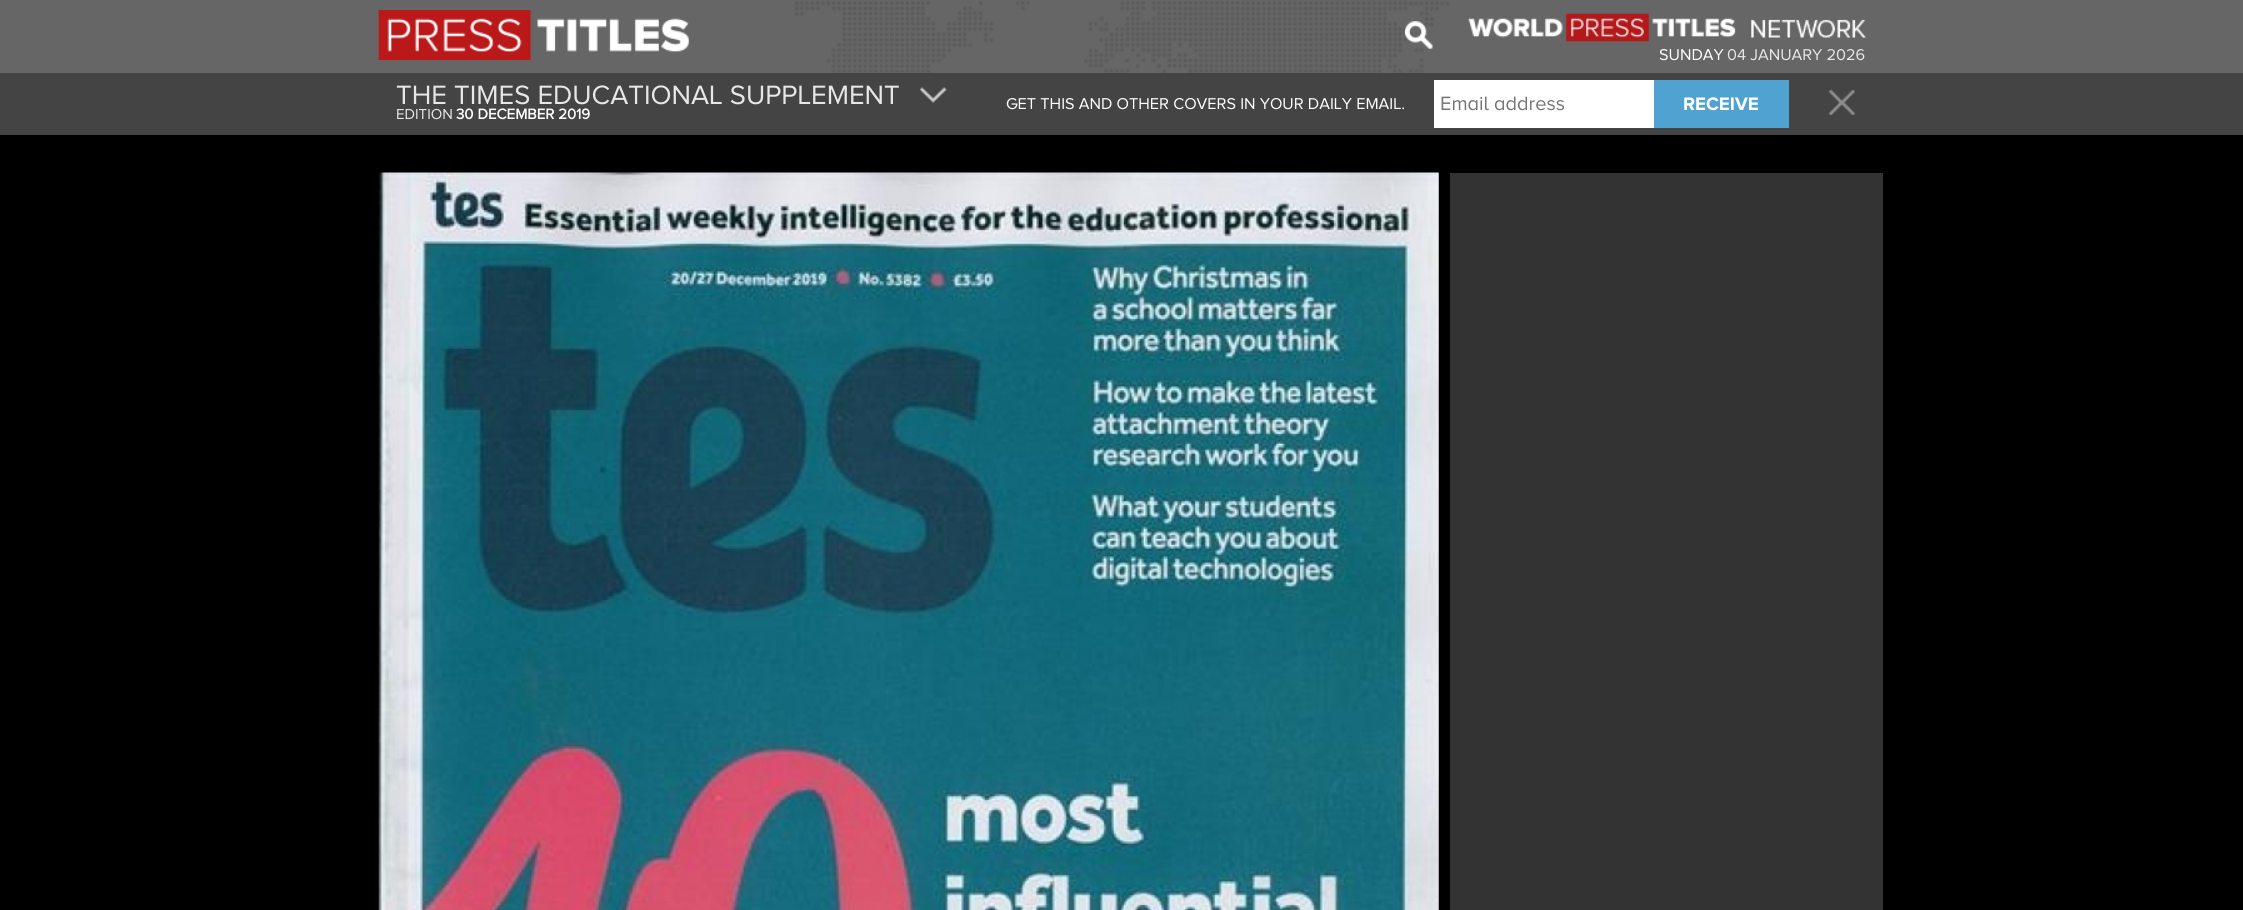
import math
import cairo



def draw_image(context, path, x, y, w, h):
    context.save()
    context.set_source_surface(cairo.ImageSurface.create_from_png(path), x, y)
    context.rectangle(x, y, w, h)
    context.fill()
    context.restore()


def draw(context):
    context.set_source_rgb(0, 0, 0)
    context.paint()
    context.set_source_rgb(102 / 255, 102 / 255, 102 / 255)
    context.rectangle(0, 0, 2243, 73)
    context.fill()
    draw_image(context, "images/1.png", 795, 1, 654, 72)
    draw_image(context, "images/2.png", 378, 10, 311, 50)
    draw_image(context, "images/3.png", 1405, 21, 28, 28)
    draw_image(context, "images/4.png", 1468, 13, 399, 29)
    context.set_source_rgb(68 / 255, 68 / 255, 68 / 255)
    context.rectangle(0, 73, 2243, 62)
    context.fill()
    draw_image(context, "images/5.png", 919, 87, 28, 16)
    context.set_source_rgb(1, 1, 1)
    context.rectangle(1434, 80, 220, 48)
    context.fill()
    context.set_source_rgb(80 / 255, 163 / 255, 208 / 255)
    context.rectangle(1654, 80, 135, 48)
    context.fill()
    draw_image(context, "images/6.png", 1828, 89, 27, 26)
    draw_image(context, "images/7.png", 378, 172, 1061, 738)
    context.set_source_rgb(51 / 255, 51 / 255, 51 / 255)
    context.rectangle(1450, 173, 433, 737)
    context.fill()
    context.select_font_face("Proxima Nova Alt")
    context.set_font_size(16.25)
    context.set_source_rgb(1, 1, 1)
    context.move_to(1659, 60)
    context.show_text("SUNDAY")
    context.set_source_rgb(231 / 255, 231 / 255, 231 / 255)
    context.move_to(1727, 60)
    context.show_text("04 JANUARY 2026")
    context.set_font_size(27.5)
    context.move_to(396, 104)
    context.show_text("THE TIMES EDUCATIONAL SUPPLEMENT")
    context.set_font_size(15)
    context.move_to(396, 119)
    context.show_text("EDITION")
    context.select_font_face("Proxima Nova Alt", cairo.FontSlant.NORMAL, cairo.FontWeight.BOLD)
    context.set_source_rgb(1, 1, 1)
    context.move_to(456, 119)
    context.show_text("30 DECEMBER 2019")
    context.select_font_face("Proxima Nova Alt")
    context.set_font_size(16.25)
    context.move_to(1006, 109)
    context.show_text("GET THIS AND OTHER COVERS IN YOUR DAILY EMAIL.")
    context.set_font_size(20)
    context.set_source_rgb(117 / 255, 117 / 255, 117 / 255)
    context.move_to(1440, 110)
    context.show_text("Email address")
    context.select_font_face("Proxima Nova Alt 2", cairo.FontSlant.NORMAL, cairo.FontWeight.BOLD)
    context.set_font_size(18.75)
    context.set_source_rgb(1, 1, 1)
    context.move_to(1683, 110)
    context.show_text("RECEIVE")


surface = cairo.ImageSurface(cairo.Format.RGB24, 2243, 910)
context = cairo.Context(surface)
options = cairo.FontOptions()
options.set_hint_metrics(cairo.HintMetrics.OFF)
options.set_hint_style(cairo.HintStyle.NONE)
context.set_font_options(options)
context.set_miter_limit(4)
draw(context)
surface.write_to_png("out.png")
